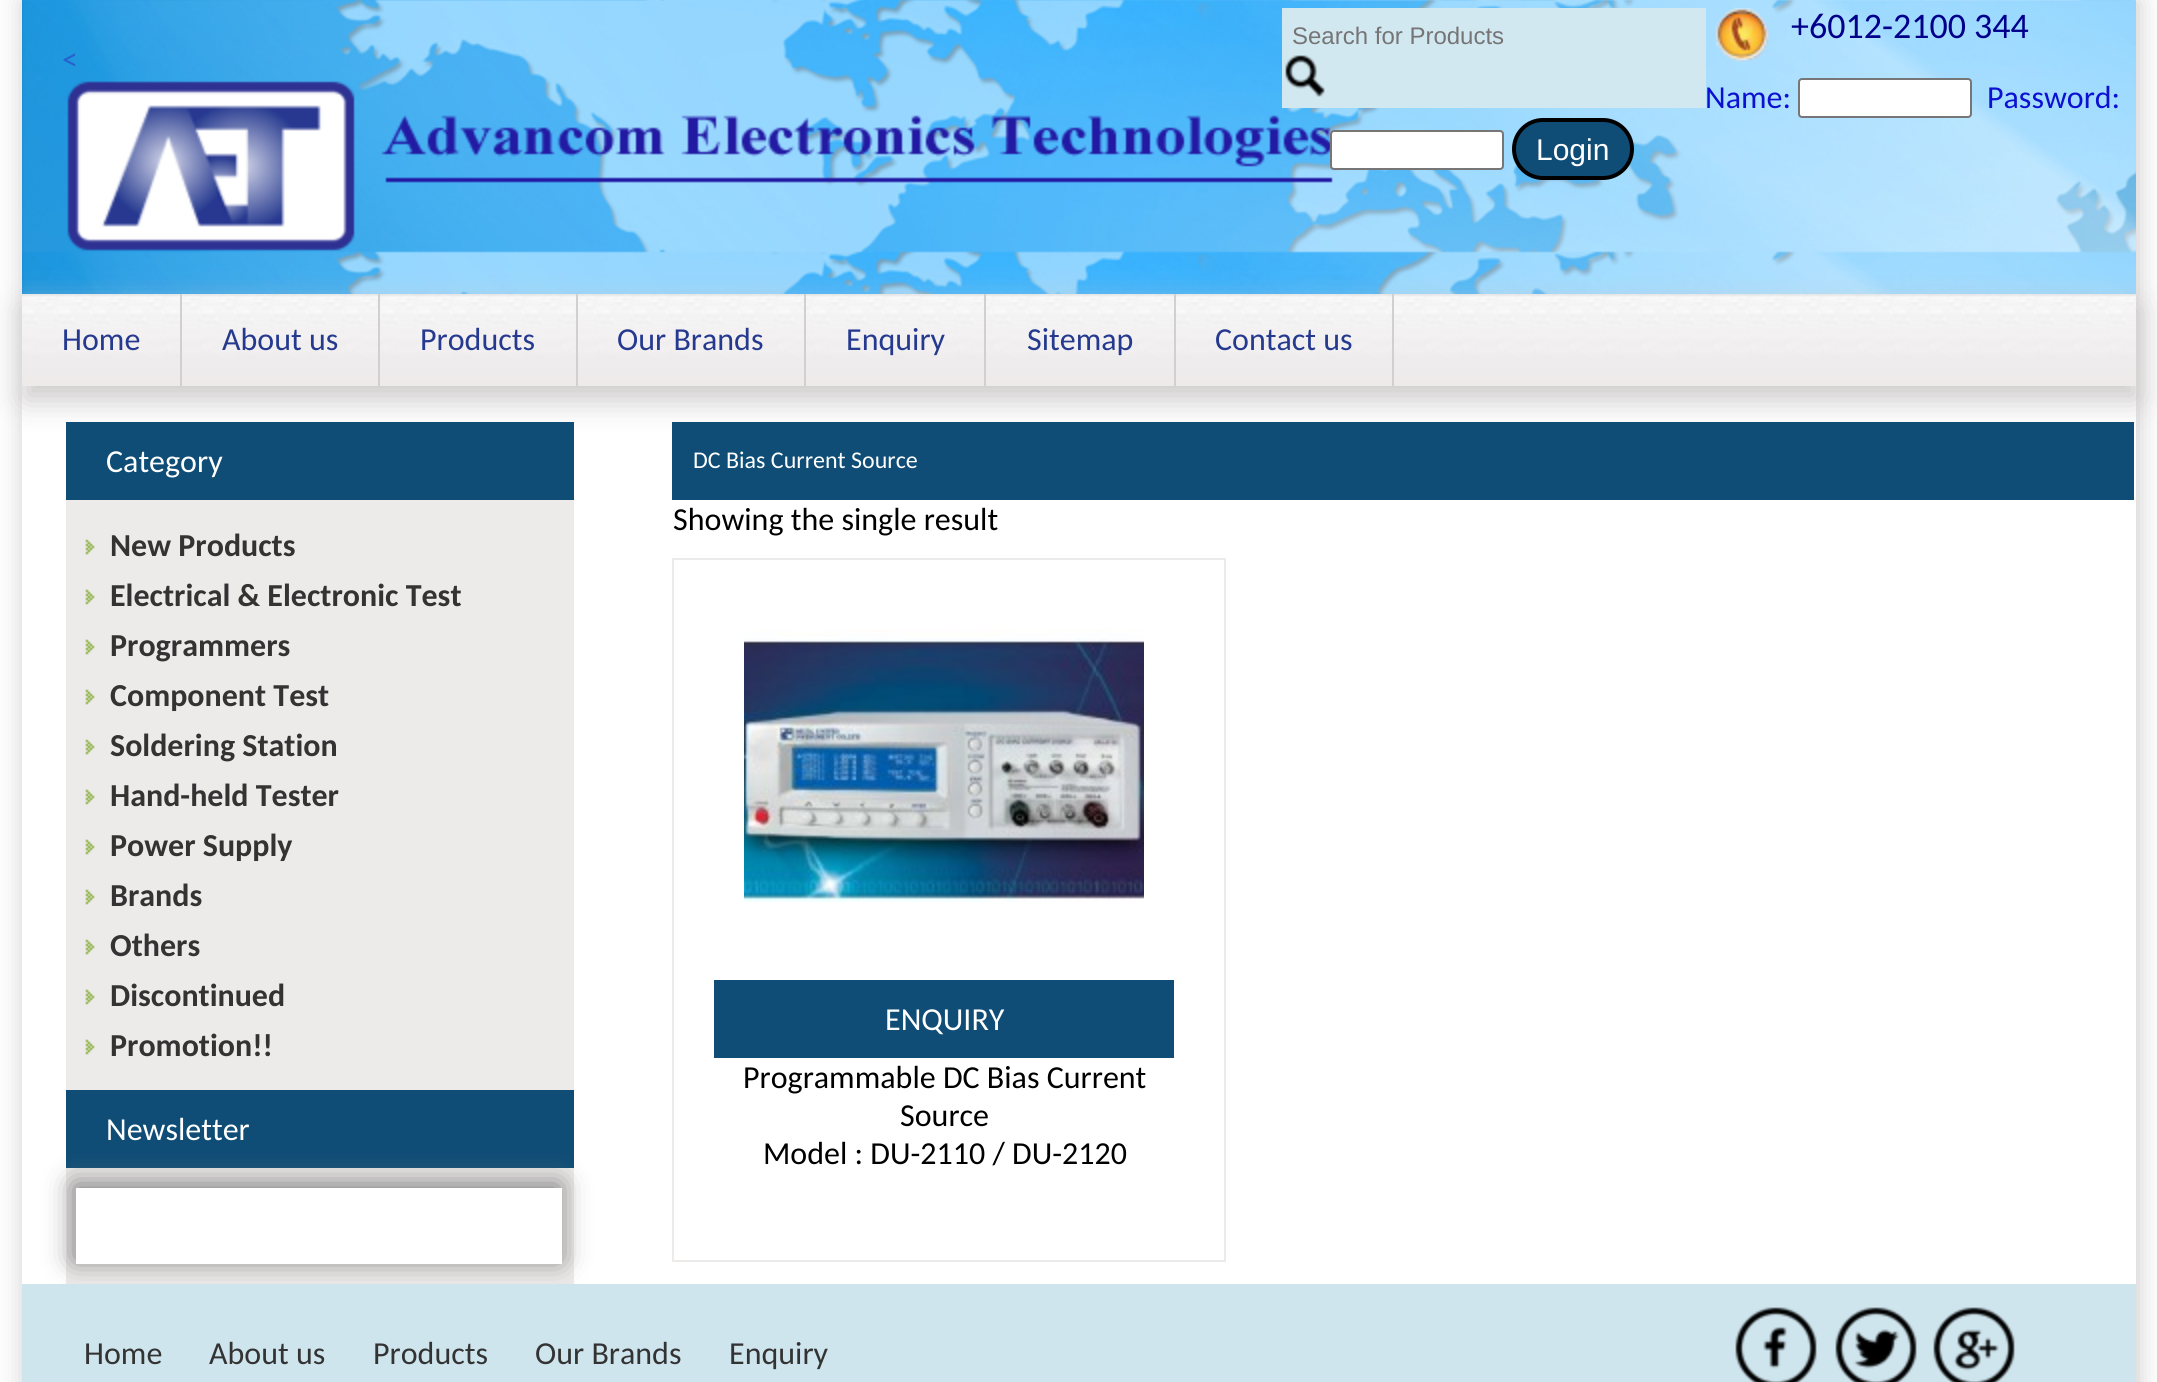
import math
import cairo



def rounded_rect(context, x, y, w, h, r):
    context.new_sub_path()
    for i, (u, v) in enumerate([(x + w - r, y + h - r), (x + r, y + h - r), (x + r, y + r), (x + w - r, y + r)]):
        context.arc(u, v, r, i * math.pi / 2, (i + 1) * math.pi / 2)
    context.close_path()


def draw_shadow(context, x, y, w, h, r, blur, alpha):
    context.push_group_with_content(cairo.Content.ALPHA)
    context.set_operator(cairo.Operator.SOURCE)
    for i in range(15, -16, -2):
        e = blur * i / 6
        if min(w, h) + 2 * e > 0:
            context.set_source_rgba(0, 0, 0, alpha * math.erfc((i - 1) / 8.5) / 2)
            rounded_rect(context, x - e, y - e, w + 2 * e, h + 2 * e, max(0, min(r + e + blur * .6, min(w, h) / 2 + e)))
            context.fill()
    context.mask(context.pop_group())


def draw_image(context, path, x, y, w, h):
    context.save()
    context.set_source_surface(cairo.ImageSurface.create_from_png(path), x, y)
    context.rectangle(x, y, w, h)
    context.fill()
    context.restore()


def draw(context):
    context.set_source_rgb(253 / 255, 253 / 255, 253 / 255)
    context.paint()
    context.set_source_rgb(203 / 255, 200 / 255, 200 / 255)
    draw_shadow(context, 24, 2, 2114, 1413, 0, 11, 1)
    context.set_source_rgb(1, 1, 1)
    context.rectangle(22, 386, 2114, 898)
    context.fill()
    draw_image(context, "images/1.png", 22, 0, 2114, 294)
    draw_image(context, "images/4.png", 67, 81, 1266, 170)
    context.set_source_rgb(210 / 255, 232 / 255, 241 / 255)
    context.rectangle(1282, 8, 424, 100)
    context.fill()
    draw_image(context, "images/2.png", 1285, 55, 40, 42)
    draw_image(context, "images/3.png", 1715, 8, 55, 54)
    context.set_source_rgb(1, 1, 1)
    rounded_rect(context, 1799, 79, 172, 38, 3)
    context.fill_preserve()
    context.set_source_rgb(118 / 255, 118 / 255, 118 / 255)
    context.stroke()
    context.set_source_rgb(1, 1, 1)
    rounded_rect(context, 1331, 131, 172, 38, 3)
    context.fill_preserve()
    context.set_source_rgb(118 / 255, 118 / 255, 118 / 255)
    context.stroke()
    context.set_source_rgb(15 / 255, 77 / 255, 118 / 255)
    rounded_rect(context, 1514, 120, 118, 58, 29)
    context.fill_preserve()
    context.set_source_rgb(0, 0, 0)
    context.set_line_width(4)
    context.stroke()
    context.set_source_rgb(203 / 255, 200 / 255, 200 / 255)
    draw_shadow(context, 24, 308, 2114, 92, 0, 15, 1)
    draw_image(context, "images/5.png", 22, 294, 2114, 92)
    context.set_source_rgb(209 / 255, 207 / 255, 207 / 255)
    context.rectangle(180, 294, 2, 92)
    context.fill()
    context.rectangle(378, 294, 2, 92)
    context.fill()
    context.rectangle(576, 294, 2, 92)
    context.fill()
    context.rectangle(804, 294, 2, 92)
    context.fill()
    context.rectangle(984, 294, 2, 92)
    context.fill()
    context.rectangle(1174, 294, 2, 92)
    context.fill()
    context.rectangle(1392, 294, 2, 92)
    context.fill()
    context.set_source_rgb(237 / 255, 234 / 255, 234 / 255)
    context.rectangle(66, 500, 508, 784)
    context.fill()
    context.set_source_rgb(15 / 255, 77 / 255, 118 / 255)
    context.rectangle(66, 422, 508, 78)
    context.fill()
    draw_image(context, "images/6.png", 85, 539, 10, 16)
    draw_image(context, "images/6.png", 85, 589, 10, 16)
    draw_image(context, "images/6.png", 85, 639, 10, 16)
    draw_image(context, "images/6.png", 85, 689, 10, 16)
    draw_image(context, "images/6.png", 85, 739, 10, 16)
    draw_image(context, "images/6.png", 85, 789, 10, 16)
    draw_image(context, "images/6.png", 85, 839, 10, 16)
    draw_image(context, "images/6.png", 85, 889, 10, 16)
    draw_image(context, "images/6.png", 85, 939, 10, 16)
    draw_image(context, "images/6.png", 85, 989, 10, 16)
    draw_image(context, "images/6.png", 85, 1039, 10, 16)
    context.rectangle(66, 1090, 508, 78)
    context.fill()
    context.set_source_rgb(122 / 255, 122 / 255, 122 / 255)
    draw_shadow(context, 74, 1184, 486, 76, 0, 14, 1)
    context.set_source_rgb(1, 1, 1)
    context.rectangle(76, 1188, 486, 76)
    context.fill()
    context.set_source_rgb(15 / 255, 77 / 255, 118 / 255)
    context.rectangle(672, 422, 1462, 78)
    context.fill()
    context.rectangle(673, 559, 552, 702)
    context.set_source_rgb(237 / 255, 234 / 255, 234 / 255)
    context.set_line_width(2)
    context.stroke()
    draw_image(context, "images/7.png", 744, 629, 400, 273)
    context.set_source_rgb(15 / 255, 77 / 255, 118 / 255)
    context.rectangle(714, 980, 460, 78)
    context.fill()
    context.set_source_rgb(207 / 255, 229 / 255, 238 / 255)
    context.rectangle(22, 1284, 2114, 98)
    context.fill()
    draw_image(context, "images/8.png", 1735, 1307, 82, 75)
    draw_image(context, "images/9.png", 1835, 1307, 82, 75)
    draw_image(context, "images/10.png", 1933, 1307, 82, 75)
    context.select_font_face("Liberation Sans")
    context.set_font_size(24)
    context.set_source_rgb(117 / 255, 117 / 255, 117 / 255)
    context.move_to(1292, 44)
    context.show_text("Search for Products")
    context.select_font_face("Carlito")
    context.set_font_size(36)
    context.set_source_rgb(0, 0, 139 / 255)
    context.move_to(1791, 38)
    context.show_text("+6012-2100 344")
    context.set_font_size(32)
    context.set_source_rgb(38 / 255, 98 / 255, 205 / 255)
    context.move_to(62, 70)
    context.show_text("<")
    context.set_source_rgb(13 / 255, 16 / 255, 208 / 255)
    context.move_to(1705, 108)
    context.show_text("Name:")
    context.move_to(1987, 108)
    context.show_text("Password:")
    context.select_font_face("Liberation Sans")
    context.set_font_size(30)
    context.set_source_rgb(1, 1, 1)
    context.move_to(1536, 160)
    context.show_text("Login")
    context.select_font_face("Carlito")
    context.set_font_size(32)
    context.set_source_rgb(37 / 255, 57 / 255, 143 / 255)
    context.move_to(62, 350)
    context.show_text("Home")
    context.move_to(222, 350)
    context.show_text("About us")
    context.move_to(420, 350)
    context.show_text("Products")
    context.move_to(617, 350)
    context.show_text("Our Brands")
    context.move_to(846, 350)
    context.show_text("Enquiry")
    context.move_to(1027, 350)
    context.show_text("Sitemap")
    context.move_to(1215, 350)
    context.show_text("Contact us")
    context.set_source_rgb(1, 1, 1)
    context.move_to(106, 472)
    context.show_text("Category")
    context.select_font_face("Carlito", cairo.FontSlant.NORMAL, cairo.FontWeight.BOLD)
    context.set_source_rgb(51 / 255, 51 / 255, 51 / 255)
    context.move_to(110, 556)
    context.show_text("New Products")
    context.move_to(110, 606)
    context.show_text("Electrical & Electronic Test")
    context.move_to(110, 656)
    context.show_text("Programmers")
    context.move_to(110, 706)
    context.show_text("Component Test")
    context.move_to(110, 756)
    context.show_text("Soldering Station")
    context.move_to(110, 806)
    context.show_text("Hand-held Tester")
    context.move_to(110, 856)
    context.show_text("Power Supply")
    context.move_to(110, 906)
    context.show_text("Brands")
    context.move_to(110, 956)
    context.show_text("Others")
    context.move_to(110, 1006)
    context.show_text("Discontinued")
    context.move_to(110, 1056)
    context.show_text("Promotion!!")
    context.select_font_face("Carlito")
    context.set_source_rgb(1, 1, 1)
    context.move_to(106, 1140)
    context.show_text("Newsletter")
    context.set_font_size(24)
    context.move_to(693, 468)
    context.show_text("DC Bias Current Source")
    context.set_font_size(32)
    context.set_source_rgb(0, 0, 0)
    context.move_to(673, 530)
    context.show_text("Showing the single result")
    context.set_source_rgb(1, 1, 1)
    context.move_to(885, 1030)
    context.show_text("ENQUIRY")
    context.set_source_rgb(0, 0, 0)
    context.move_to(743, 1088)
    context.show_text("Programmable DC Bias Current")
    context.move_to(900, 1126)
    context.show_text("Source")
    context.move_to(763, 1164)
    context.show_text("Model : DU-2110 / DU-2120")
    context.set_source_rgb(51 / 255, 51 / 255, 51 / 255)
    context.move_to(84, 1364)
    context.show_text("Home")
    context.move_to(209, 1364)
    context.show_text("About us")
    context.move_to(373, 1364)
    context.show_text("Products")
    context.move_to(535, 1364)
    context.show_text("Our Brands")
    context.move_to(729, 1364)
    context.show_text("Enquiry")


surface = cairo.ImageSurface(cairo.Format.RGB24, 2157, 1382)
context = cairo.Context(surface)
options = cairo.FontOptions()
options.set_hint_metrics(cairo.HintMetrics.OFF)
options.set_hint_style(cairo.HintStyle.NONE)
context.set_font_options(options)
context.set_miter_limit(4)
draw(context)
surface.write_to_png("out.png")
